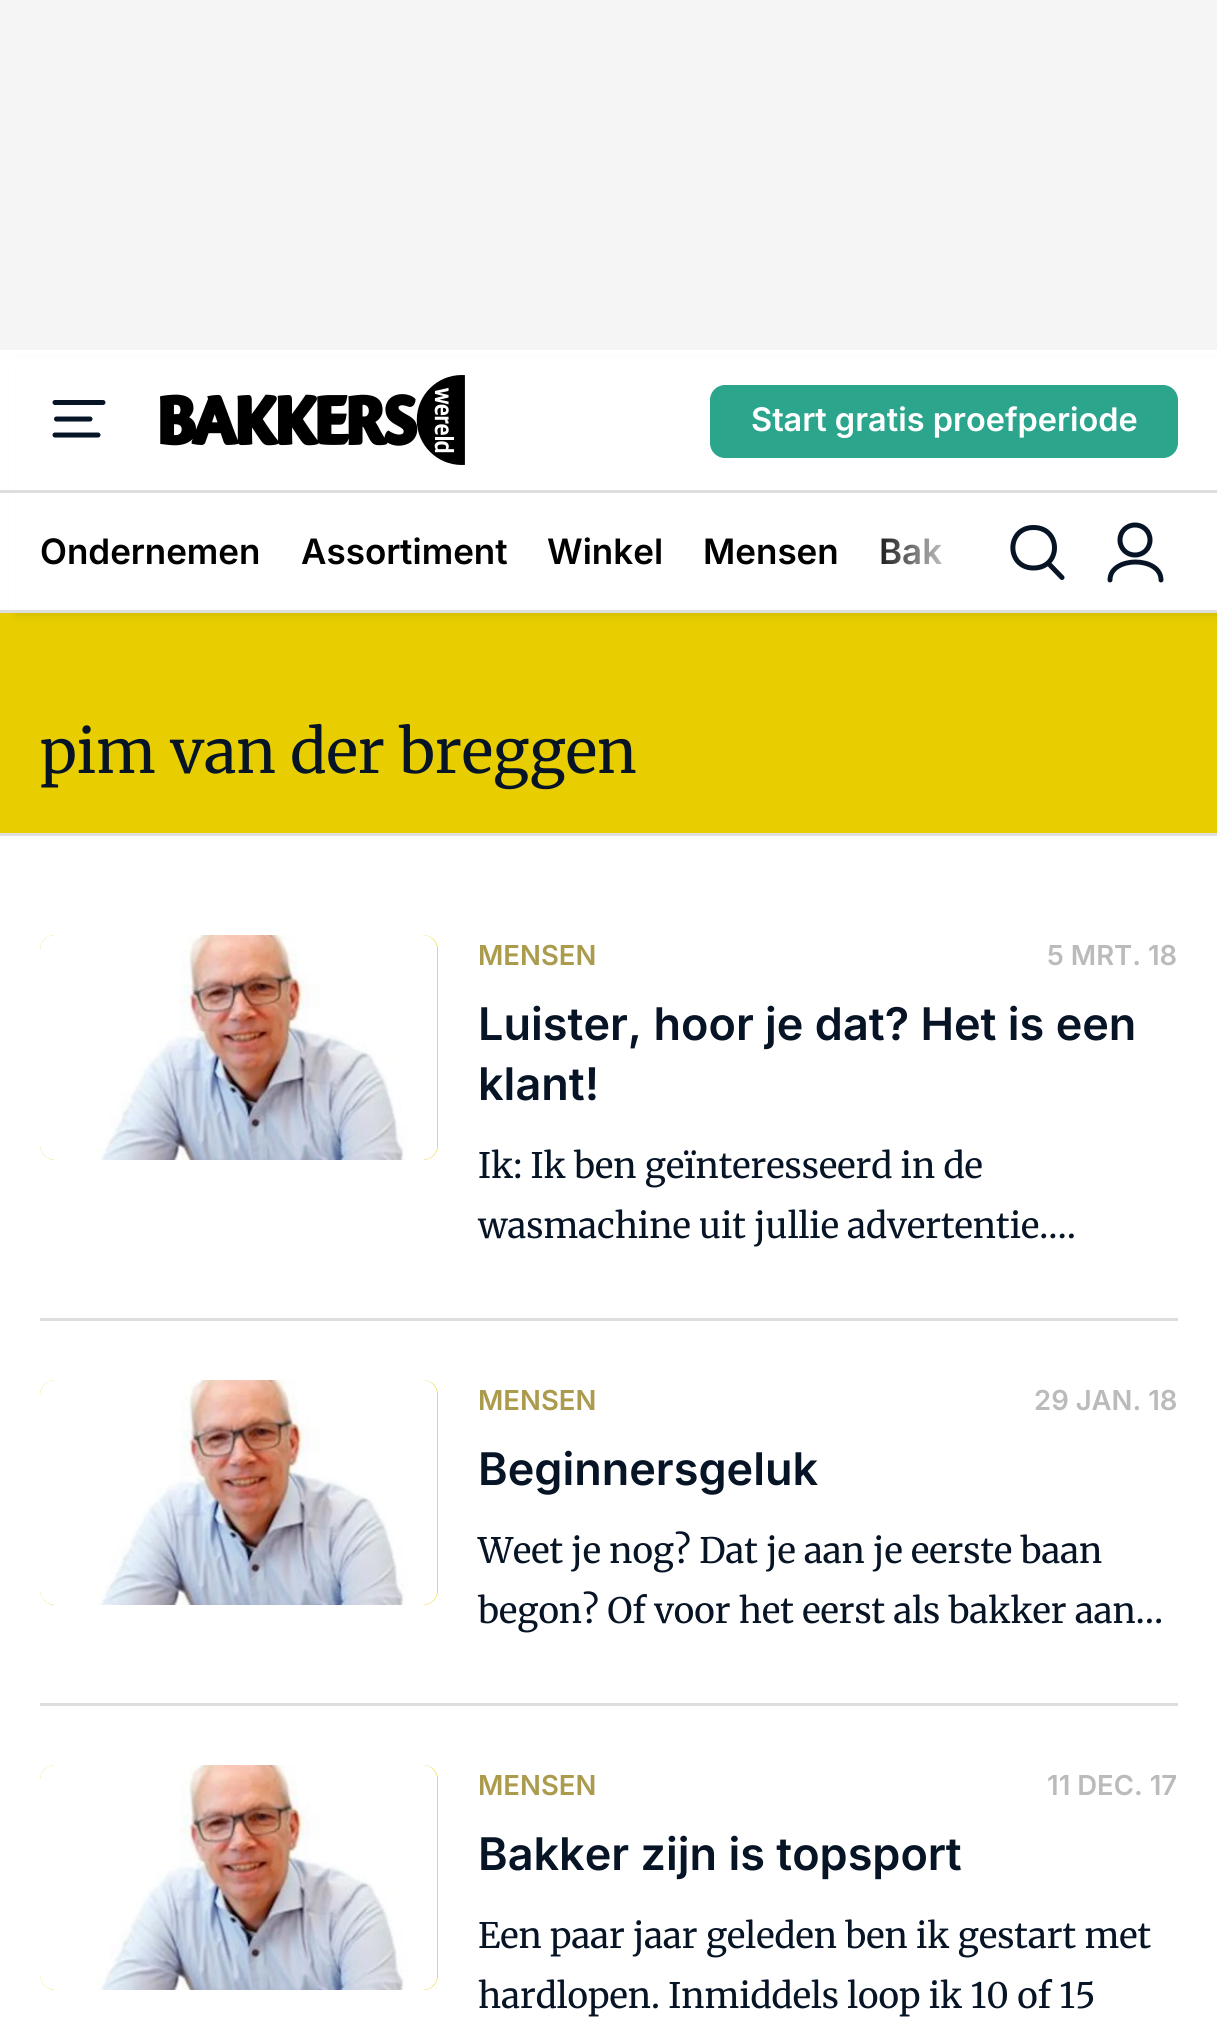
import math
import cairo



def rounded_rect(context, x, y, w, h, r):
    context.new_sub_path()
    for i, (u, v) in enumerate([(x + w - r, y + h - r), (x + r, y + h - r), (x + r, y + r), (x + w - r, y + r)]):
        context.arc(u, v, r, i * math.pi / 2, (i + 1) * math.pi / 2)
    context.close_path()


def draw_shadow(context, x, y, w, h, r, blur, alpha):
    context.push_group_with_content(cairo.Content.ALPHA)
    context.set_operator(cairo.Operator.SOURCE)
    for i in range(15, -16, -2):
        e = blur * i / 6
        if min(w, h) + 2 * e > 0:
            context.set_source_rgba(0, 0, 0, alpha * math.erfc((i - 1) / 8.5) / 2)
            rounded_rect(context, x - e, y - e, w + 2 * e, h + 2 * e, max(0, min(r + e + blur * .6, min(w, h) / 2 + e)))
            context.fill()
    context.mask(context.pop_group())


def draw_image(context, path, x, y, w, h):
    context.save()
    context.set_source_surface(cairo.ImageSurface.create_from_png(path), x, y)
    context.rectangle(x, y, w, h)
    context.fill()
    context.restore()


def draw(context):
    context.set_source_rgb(1, 1, 1)
    context.paint()
    context.set_source_rgb(245 / 255, 245 / 255, 245 / 255)
    context.rectangle(0, 0, 1217, 350)
    context.fill()
    context.set_source_rgb(232 / 255, 206 / 255, 0)
    context.rectangle(0, 613, 1217, 220)
    context.fill()
    context.set_source_rgb(0, 0, 0)
    draw_shadow(context, 15, 363, 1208, 252, 0, 5, 0.1)
    context.set_source_rgb(1, 1, 1)
    context.rectangle(9, 357, 1208, 253)
    context.fill()
    context.set_source_rgb(222 / 255, 222 / 255, 222 / 255)
    context.rectangle(0, 610, 1217, 3)
    context.fill()
    context.save()
    context.new_path()
    context.move_to(52.5, 400)
    context.line_to(107.5, 400)
    context.line_to(107.5, 440)
    context.line_to(52.5, 440)
    context.close_path()
    context.clip()
    context.new_path()
    context.move_to(55, 402.5)
    context.line_to(103, 402.5)
    context.move_to(56.5, 419)
    context.line_to(90, 419)
    context.move_to(55, 435)
    context.line_to(98, 435)
    context.set_source_rgb(6 / 255, 20 / 255, 38 / 255)
    context.set_line_width(5)
    context.set_line_cap(cairo.LineCap.ROUND)
    context.set_line_join(cairo.LineJoin.ROUND)
    context.stroke()
    context.restore()
    draw_image(context, "images/1.png", 160, 375, 305, 90)
    context.set_source_rgb(44 / 255, 165 / 255, 141 / 255)
    rounded_rect(context, 710, 385, 468, 73, 15)
    context.fill()
    context.set_source_rgb(222 / 255, 222 / 255, 222 / 255)
    context.rectangle(0, 490, 1217, 3)
    context.fill()
    context.new_path()
    context.move_to(1033.5, 568)
    context.curve_to(1061.5, 568, 1061.5, 527.5, 1033.5, 527.5)
    context.curve_to(1006, 527.5, 1006, 568, 1033.5, 568)
    context.move_to(1048.5, 563.5)
    context.line_to(1062, 577.5)
    context.set_source_rgb(6 / 255, 20 / 255, 38 / 255)
    context.set_line_width(5)
    context.set_line_cap(cairo.LineCap.ROUND)
    context.set_line_join(cairo.LineJoin.ROUND)
    context.stroke()
    context.save()
    context.new_path()
    context.move_to(1107.5, 522.5)
    context.line_to(1165, 522.5)
    context.line_to(1165, 582.5)
    context.line_to(1107.5, 582.5)
    context.close_path()
    context.clip()
    context.new_path()
    context.move_to(1135, 555)
    context.curve_to(1143.5, 555, 1150, 548.5, 1150, 540)
    context.curve_to(1150, 531.5, 1143.5, 525, 1135, 525)
    context.curve_to(1126.5, 525, 1120, 531.5, 1120, 540)
    context.curve_to(1120, 548.5, 1126.5, 555, 1135, 555)
    context.stroke()
    context.new_path()
    context.move_to(1110, 580)
    context.curve_to(1110, 556, 1161, 556, 1161, 580)
    context.set_line_width(4.9)
    context.stroke()
    context.restore()
    context.set_source_rgb(222 / 255, 222 / 255, 222 / 255)
    context.rectangle(0, 833, 1217, 3)
    context.fill()
    context.rectangle(40, 1318, 1138, 3)
    context.fill()
    context.set_source_rgb(232 / 255, 206 / 255, 0)
    rounded_rect(context, 40, 935, 398, 225, 15)
    context.fill()
    draw_image(context, "images/2.png", 40, 935, 398, 225)
    context.set_source_rgb(222 / 255, 222 / 255, 222 / 255)
    context.rectangle(40, 1703, 1138, 3)
    context.fill()
    context.set_source_rgb(232 / 255, 206 / 255, 0)
    rounded_rect(context, 40, 1380, 398, 225, 15)
    context.fill()
    draw_image(context, "images/3.png", 40, 1380, 398, 225)
    rounded_rect(context, 40, 1765, 398, 225, 15)
    context.fill()
    draw_image(context, "images/4.png", 40, 1765, 398, 225)
    context.select_font_face("Inter SemiBold")
    context.set_font_size(32.5)
    context.set_source_rgb(1, 1, 1)
    context.move_to(751, 431)
    context.show_text("Start gratis proefperiode")
    context.set_font_size(35)
    context.set_source_rgb(0, 0, 0)
    context.move_to(40, 564)
    context.show_text("Ondernemen")
    context.move_to(301, 564)
    context.show_text("Assortiment")
    context.move_to(547, 564)
    context.show_text("Winkel")
    context.move_to(703, 564)
    context.show_text("Mensen")
    context.move_to(879, 564)
    context.show_text("Bak")
    gradient = cairo.LinearGradient(868, 551, 968, 551)
    gradient.add_color_stop_rgba(0, 1, 1, 1, 0)
    gradient.add_color_stop_rgba(1, 1, 1, 1, 1)
    context.set_source(gradient)
    context.rectangle(881, 538, 61, 27)
    context.fill()
    context.select_font_face("Merriweather")
    context.set_font_size(60)
    context.set_source_rgb(6 / 255, 20 / 255, 38 / 255)
    context.move_to(40, 773)
    context.show_text("pim van der breggen")
    context.select_font_face("Inter SemiBold")
    context.set_font_size(27.5)
    context.set_source_rgb(171 / 255, 155 / 255, 77 / 255)
    context.move_to(478, 965)
    context.show_text("MENSEN")
    context.set_source_rgb(187 / 255, 187 / 255, 187 / 255)
    context.move_to(1047, 965)
    context.show_text("5 MRT. 18")
    context.set_font_size(45)
    context.set_source_rgb(6 / 255, 20 / 255, 38 / 255)
    context.move_to(478, 1040)
    context.show_text("Luister, hoor je dat? Het is een")
    context.move_to(478, 1100)
    context.show_text("klant!")
    context.select_font_face("Merriweather")
    context.set_font_size(35)
    context.move_to(478, 1178)
    context.show_text("Ik: Ik ben geïnteresseerd in de")
    context.move_to(478, 1238)
    context.show_text("wasmachine uit jullie advertentie.…")
    context.select_font_face("Inter SemiBold")
    context.set_font_size(27.5)
    context.set_source_rgb(171 / 255, 155 / 255, 77 / 255)
    context.move_to(478, 1410)
    context.show_text("MENSEN")
    context.set_source_rgb(187 / 255, 187 / 255, 187 / 255)
    context.move_to(1034, 1410)
    context.show_text("29 JAN. 18")
    context.set_font_size(45)
    context.set_source_rgb(6 / 255, 20 / 255, 38 / 255)
    context.move_to(478, 1485)
    context.show_text("Beginnersgeluk")
    context.select_font_face("Merriweather")
    context.set_font_size(35)
    context.move_to(478, 1563)
    context.show_text("Weet je nog? Dat je aan je eerste baan")
    context.move_to(478, 1623)
    context.show_text("begon? Of voor het eerst als bakker aan…")
    context.select_font_face("Inter SemiBold")
    context.set_font_size(27.5)
    context.set_source_rgb(171 / 255, 155 / 255, 77 / 255)
    context.move_to(478, 1795)
    context.show_text("MENSEN")
    context.set_source_rgb(187 / 255, 187 / 255, 187 / 255)
    context.move_to(1047, 1795)
    context.show_text("11 DEC. 17")
    context.set_font_size(45)
    context.set_source_rgb(6 / 255, 20 / 255, 38 / 255)
    context.move_to(478, 1870)
    context.show_text("Bakker zijn is topsport")
    context.select_font_face("Merriweather")
    context.set_font_size(35)
    context.move_to(478, 1948)
    context.show_text("Een paar jaar geleden ben ik gestart met")
    context.move_to(478, 2008)
    context.show_text("hardlopen. Inmiddels loop ik 10 of 15")


surface = cairo.ImageSurface(cairo.Format.RGB24, 1217, 2026)
context = cairo.Context(surface)
options = cairo.FontOptions()
options.set_hint_metrics(cairo.HintMetrics.OFF)
options.set_hint_style(cairo.HintStyle.NONE)
context.set_font_options(options)
context.set_miter_limit(4)
draw(context)
surface.write_to_png("out.png")
